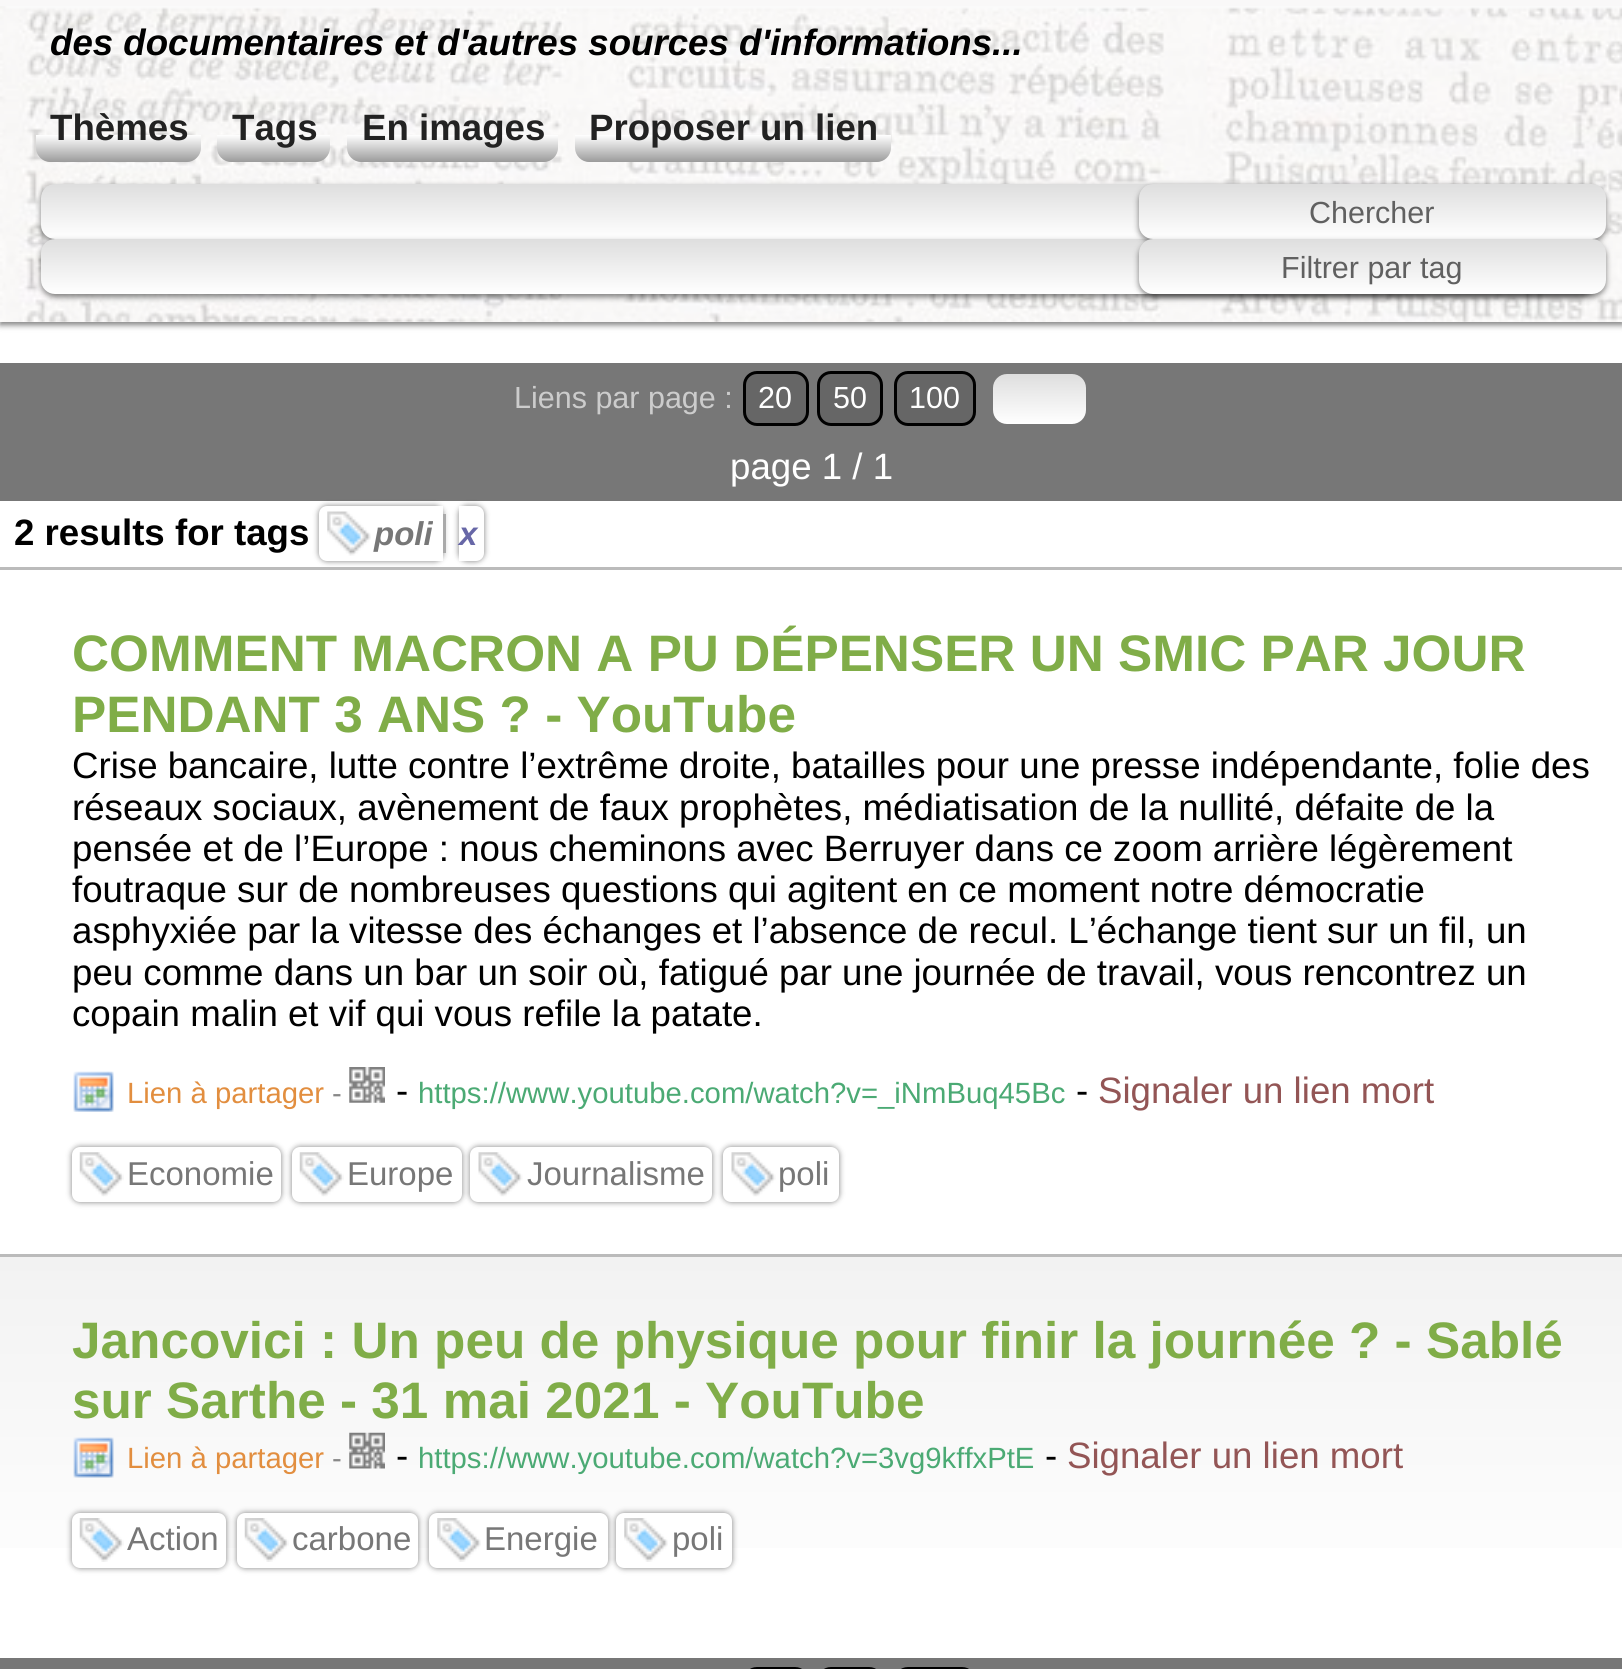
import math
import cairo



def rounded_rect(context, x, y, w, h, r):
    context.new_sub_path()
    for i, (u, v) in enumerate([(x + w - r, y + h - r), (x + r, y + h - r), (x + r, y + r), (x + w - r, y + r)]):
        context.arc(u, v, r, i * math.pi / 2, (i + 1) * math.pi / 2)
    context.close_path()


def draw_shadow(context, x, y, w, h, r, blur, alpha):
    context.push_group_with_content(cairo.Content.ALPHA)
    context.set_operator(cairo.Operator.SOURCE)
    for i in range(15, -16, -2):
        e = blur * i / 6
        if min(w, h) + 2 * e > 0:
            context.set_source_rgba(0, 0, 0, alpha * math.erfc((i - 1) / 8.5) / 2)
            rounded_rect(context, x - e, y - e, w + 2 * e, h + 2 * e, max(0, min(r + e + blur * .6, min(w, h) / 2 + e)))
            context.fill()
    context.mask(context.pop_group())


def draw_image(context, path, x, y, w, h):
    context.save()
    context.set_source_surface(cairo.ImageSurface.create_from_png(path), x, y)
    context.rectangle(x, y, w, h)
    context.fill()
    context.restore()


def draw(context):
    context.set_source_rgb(1, 1, 1)
    context.paint()
    context.set_source_rgb(0, 0, 0)
    draw_shadow(context, 0, 3, 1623, 322, 0, 3, 0.5)
    context.set_source_rgb(249 / 255, 248 / 255, 248 / 255)
    context.rectangle(0, 0, 1622, 322)
    context.fill()
    draw_image(context, "images/1.png", 0, 6, 1622, 316)
    gradient = cairo.LinearGradient(118, 135, 118, 204)
    gradient.add_color_stop_rgba(0, 1, 1, 1, 1)
    gradient.add_color_stop_rgba(1, 0, 0, 0, 1)
    context.set_source(gradient)
    context.new_path()
    context.move_to(36, 135)
    context.line_to(201, 135)
    context.line_to(201, 148)
    context.curve_to(201, 155.5, 194.5, 162, 187, 162)
    context.line_to(50, 162)
    context.curve_to(42.5, 162, 36, 155.5, 36, 148)
    context.close_path()
    context.fill()
    gradient = cairo.LinearGradient(274, 135, 274, 204)
    gradient.add_color_stop_rgba(0, 1, 1, 1, 1)
    gradient.add_color_stop_rgba(1, 0, 0, 0, 1)
    context.set_source(gradient)
    context.new_path()
    context.move_to(217, 135)
    context.line_to(330, 135)
    context.line_to(330, 148)
    context.curve_to(330, 155.5, 323.5, 162, 316, 162)
    context.line_to(231, 162)
    context.curve_to(223.5, 162, 217, 155.5, 217, 148)
    context.close_path()
    context.fill()
    gradient = cairo.LinearGradient(452, 135, 452, 204)
    gradient.add_color_stop_rgba(0, 1, 1, 1, 1)
    gradient.add_color_stop_rgba(1, 0, 0, 0, 1)
    context.set_source(gradient)
    context.new_path()
    context.move_to(347, 135)
    context.line_to(558, 135)
    context.line_to(558, 148)
    context.curve_to(558, 155.5, 551.5, 162, 544, 162)
    context.line_to(361, 162)
    context.curve_to(353.5, 162, 347, 155.5, 347, 148)
    context.close_path()
    context.fill()
    gradient = cairo.LinearGradient(733, 135, 733, 204)
    gradient.add_color_stop_rgba(0, 1, 1, 1, 1)
    gradient.add_color_stop_rgba(1, 0, 0, 0, 1)
    context.set_source(gradient)
    context.new_path()
    context.move_to(575, 135)
    context.line_to(891, 135)
    context.line_to(891, 148)
    context.curve_to(891, 155.5, 884.5, 162, 877, 162)
    context.line_to(589, 162)
    context.curve_to(581.5, 162, 575, 155.5, 575, 148)
    context.close_path()
    context.fill()
    context.set_source_rgb(0, 0, 0)
    draw_shadow(context, 41, 187, 1554, 55, 14, 3, 0.5)
    gradient = cairo.LinearGradient(818, 184, 818, 239)
    gradient.add_color_stop_rgba(0, 222 / 255, 222 / 255, 222 / 255, 1)
    gradient.add_color_stop_rgba(1, 1, 1, 1, 1)
    context.set_source(gradient)
    rounded_rect(context, 41, 184, 1554, 55, 14)
    context.fill()
    context.set_source_rgb(0, 0, 0)
    draw_shadow(context, 41, 242, 1554, 55, 14, 3, 0.5)
    gradient = cairo.LinearGradient(818, 239, 818, 294)
    gradient.add_color_stop_rgba(0, 222 / 255, 222 / 255, 222 / 255, 1)
    gradient.add_color_stop_rgba(1, 1, 1, 1, 1)
    context.set_source(gradient)
    rounded_rect(context, 41, 239, 1554, 55, 14)
    context.fill()
    context.set_source_rgb(0, 0, 0)
    draw_shadow(context, 1139, 187, 467, 55, 14, 3, 0.5)
    gradient = cairo.LinearGradient(1372, 184, 1372, 239)
    gradient.add_color_stop_rgba(0, 222 / 255, 222 / 255, 222 / 255, 1)
    gradient.add_color_stop_rgba(1, 1, 1, 1, 1)
    context.set_source(gradient)
    rounded_rect(context, 1139, 184, 467, 55, 14)
    context.fill()
    context.set_source_rgb(0, 0, 0)
    draw_shadow(context, 1139, 242, 467, 55, 14, 3, 0.5)
    gradient = cairo.LinearGradient(1372, 239, 1372, 294)
    gradient.add_color_stop_rgba(0, 222 / 255, 222 / 255, 222 / 255, 1)
    gradient.add_color_stop_rgba(1, 1, 1, 1, 1)
    context.set_source(gradient)
    rounded_rect(context, 1139, 239, 467, 55, 14)
    context.fill()
    context.set_source_rgb(119 / 255, 119 / 255, 119 / 255)
    context.rectangle(0, 363, 1622, 138)
    context.fill()
    context.set_source_rgb(102 / 255, 102 / 255, 102 / 255)
    rounded_rect(context, 744.5, 372.5, 63, 52, 12.5)
    context.fill_preserve()
    context.set_source_rgb(0, 0, 0)
    context.set_line_width(3)
    context.stroke()
    context.set_source_rgb(102 / 255, 102 / 255, 102 / 255)
    rounded_rect(context, 818.5, 372.5, 63, 52, 12.5)
    context.fill_preserve()
    context.set_source_rgb(0, 0, 0)
    context.stroke()
    context.set_source_rgb(102 / 255, 102 / 255, 102 / 255)
    rounded_rect(context, 895.5, 372.5, 79, 52, 12.5)
    context.fill_preserve()
    context.set_source_rgb(0, 0, 0)
    context.stroke()
    gradient = cairo.LinearGradient(1040, 374, 1040, 424)
    gradient.add_color_stop_rgba(0, 222 / 255, 222 / 255, 222 / 255, 1)
    gradient.add_color_stop_rgba(1, 1, 1, 1, 1)
    context.set_source(gradient)
    rounded_rect(context, 993, 374, 93, 50, 14)
    context.fill()
    context.set_source_rgb(187 / 255, 187 / 255, 187 / 255)
    context.rectangle(0, 567, 1622, 3)
    context.fill()
    context.set_source_rgb(0, 0, 0)
    draw_shadow(context, 319, 506, 124, 55, 8, 3, 0.5)
    context.set_source_rgb(1, 1, 1)
    context.new_path()
    context.move_to(327, 506)
    context.line_to(443, 506)
    context.line_to(443, 561)
    context.line_to(327, 561)
    context.curve_to(322.5, 561, 319, 557.5, 319, 553)
    context.line_to(319, 514)
    context.curve_to(319, 509.5, 322.5, 506, 327, 506)
    context.close_path()
    context.fill()
    draw_image(context, "images/2.png", 327, 511, 44, 45)
    context.set_source_rgb(170 / 255, 170 / 255, 170 / 255)
    context.rectangle(443, 514, 3, 39)
    context.fill()
    context.set_source_rgb(0, 0, 0)
    draw_shadow(context, 459, 506, 25, 55, 8, 3, 0.5)
    context.set_source_rgb(1, 1, 1)
    context.new_path()
    context.move_to(459, 506)
    context.line_to(476, 506)
    context.curve_to(480.5, 506, 484, 509.5, 484, 514)
    context.line_to(484, 553)
    context.curve_to(484, 557.5, 480.5, 561, 476, 561)
    context.line_to(459, 561)
    context.close_path()
    context.fill()
    draw_image(context, "images/3.png", 73, 1071, 41, 41)
    draw_image(context, "images/4.png", 349, 1067, 36, 36)
    context.set_source_rgb(0, 0, 0)
    draw_shadow(context, 72, 1147, 209, 55, 8, 3, 0.5)
    context.set_source_rgb(1, 1, 1)
    rounded_rect(context, 72, 1147, 209, 55, 8)
    context.fill()
    draw_image(context, "images/5.png", 79, 1152, 45, 45)
    context.set_source_rgb(0, 0, 0)
    draw_shadow(context, 292, 1147, 170, 55, 8, 3, 0.5)
    context.set_source_rgb(1, 1, 1)
    rounded_rect(context, 292, 1147, 170, 55, 8)
    context.fill()
    draw_image(context, "images/5.png", 299, 1152, 45, 45)
    context.set_source_rgb(0, 0, 0)
    draw_shadow(context, 470, 1147, 242, 55, 8, 3, 0.5)
    context.set_source_rgb(1, 1, 1)
    rounded_rect(context, 470, 1147, 242, 55, 8)
    context.fill()
    draw_image(context, "images/6.png", 478, 1152, 45, 45)
    context.set_source_rgb(0, 0, 0)
    draw_shadow(context, 723, 1147, 116, 55, 8, 3, 0.5)
    context.set_source_rgb(1, 1, 1)
    rounded_rect(context, 723, 1147, 116, 55, 8)
    context.fill()
    draw_image(context, "images/7.png", 731, 1152, 45, 45)
    gradient = cairo.LinearGradient(811, 1257, 811, 1617)
    gradient.add_color_stop_rgba(0, 242 / 255, 242 / 255, 242 / 255, 1)
    gradient.add_color_stop_rgba(1, 1, 1, 1, 1)
    context.set_source(gradient)
    context.rectangle(0, 1257, 1622, 291)
    context.fill()
    context.set_source_rgb(187 / 255, 187 / 255, 187 / 255)
    context.rectangle(0, 1254, 1622, 3)
    context.fill()
    draw_image(context, "images/8.png", 73, 1437, 41, 41)
    draw_image(context, "images/9.png", 349, 1432, 36, 37)
    context.set_source_rgb(0, 0, 0)
    draw_shadow(context, 72, 1513, 154, 55, 8, 3, 0.5)
    context.set_source_rgb(1, 1, 1)
    rounded_rect(context, 72, 1513, 154, 55, 8)
    context.fill()
    draw_image(context, "images/10.png", 79, 1518, 45, 44)
    context.set_source_rgb(0, 0, 0)
    draw_shadow(context, 237, 1513, 181, 55, 8, 3, 0.5)
    context.set_source_rgb(1, 1, 1)
    rounded_rect(context, 237, 1513, 181, 55, 8)
    context.fill()
    draw_image(context, "images/10.png", 244, 1518, 45, 44)
    context.set_source_rgb(0, 0, 0)
    draw_shadow(context, 429, 1513, 179, 55, 8, 3, 0.5)
    context.set_source_rgb(1, 1, 1)
    rounded_rect(context, 429, 1513, 179, 55, 8)
    context.fill()
    draw_image(context, "images/11.png", 437, 1518, 44, 44)
    context.set_source_rgb(0, 0, 0)
    draw_shadow(context, 616, 1513, 116, 55, 8, 3, 0.5)
    context.set_source_rgb(1, 1, 1)
    rounded_rect(context, 616, 1513, 116, 55, 8)
    context.fill()
    draw_image(context, "images/12.png", 624, 1518, 44, 44)
    context.set_source_rgb(119 / 255, 119 / 255, 119 / 255)
    context.rectangle(0, 1658, 1622, 11)
    context.fill()
    rounded_rect(context, 744.5, 1668.5, 63, 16, 12.5)
    context.set_source_rgb(0, 0, 0)
    context.stroke()
    rounded_rect(context, 818.5, 1668.5, 63, 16, 12.5)
    context.stroke()
    rounded_rect(context, 895.5, 1668.5, 79, 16, 12.5)
    context.stroke()
    context.select_font_face("Liberation Sans", cairo.FontSlant.ITALIC, cairo.FontWeight.BOLD)
    context.set_font_size(36.65)
    context.move_to(50, 55)
    context.show_text("des documentaires et d'autres sources d'informations...")
    context.select_font_face("Liberation Sans", cairo.FontSlant.NORMAL, cairo.FontWeight.BOLD)
    context.set_source_rgb(34 / 255, 34 / 255, 34 / 255)
    context.move_to(50, 140)
    context.show_text("Thèmes")
    context.move_to(232, 140)
    context.show_text("Tags")
    context.move_to(362, 140)
    context.show_text("En images")
    context.move_to(589, 140)
    context.show_text("Proposer un lien")
    context.select_font_face("Liberation Sans")
    context.set_font_size(30.5)
    context.set_source_rgb(96 / 255, 96 / 255, 96 / 255)
    context.move_to(1309, 223)
    context.show_text("Chercher")
    context.move_to(1281, 278)
    context.show_text("Filtrer par tag")
    context.set_source_rgb(204 / 255, 204 / 255, 204 / 255)
    context.move_to(514, 408)
    context.show_text("Liens par page :")
    context.set_source_rgb(1, 1, 1)
    context.move_to(758, 408)
    context.show_text("20")
    context.move_to(833, 408)
    context.show_text("50")
    context.move_to(909, 408)
    context.show_text("100")
    context.set_font_size(36.65)
    context.move_to(730, 479)
    context.show_text("page 1 / 1")
    context.select_font_face("Liberation Sans", cairo.FontSlant.NORMAL, cairo.FontWeight.BOLD)
    context.set_source_rgb(0, 0, 0)
    context.move_to(14, 545)
    context.show_text("2 results for tags")
    context.select_font_face("Liberation Sans", cairo.FontSlant.ITALIC, cairo.FontWeight.BOLD)
    context.set_font_size(33)
    context.set_source_rgb(119 / 255, 119 / 255, 119 / 255)
    context.move_to(374, 545)
    context.show_text("poli")
    context.set_source_rgb(103 / 255, 103 / 255, 167 / 255)
    context.move_to(459, 545)
    context.show_text("x")
    context.select_font_face("Liberation Sans", cairo.FontSlant.NORMAL, cairo.FontWeight.BOLD)
    context.set_font_size(51.3)
    context.set_source_rgb(128 / 255, 173 / 255, 72 / 255)
    context.move_to(72, 671)
    context.show_text("COMMENT MACRON A PU DÉPENSER UN SMIC PAR JOUR")
    context.move_to(72, 732)
    context.show_text("PENDANT 3 ANS ? - YouTube")
    context.select_font_face("Liberation Sans")
    context.set_font_size(36.65)
    context.set_source_rgb(0, 0, 0)
    context.move_to(72, 778)
    context.show_text("Crise bancaire, lutte contre l’extrême droite, batailles pour une presse indépendante, folie des")
    context.move_to(72, 820)
    context.show_text("réseaux sociaux, avènement de faux prophètes, médiatisation de la nullité, défaite de la")
    context.move_to(72, 861)
    context.show_text("pensée et de l’Europe : nous cheminons avec Berruyer dans ce zoom arrière légèrement")
    context.move_to(72, 902)
    context.show_text("foutraque sur de nombreuses questions qui agitent en ce moment notre démocratie")
    context.move_to(72, 943)
    context.show_text("asphyxiée par la vitesse des échanges et l’absence de recul. L’échange tient sur un fil, un")
    context.move_to(72, 985)
    context.show_text("peu comme dans un bar un soir où, fatigué par une journée de travail, vous rencontrez un")
    context.move_to(72, 1026)
    context.show_text("copain malin et vif qui vous refile la patate.")
    context.set_font_size(29.3)
    context.set_source_rgb(226 / 255, 142 / 255, 63 / 255)
    context.move_to(127, 1103)
    context.show_text("Lien à partager")
    context.set_font_size(36.65)
    context.set_source_rgb(0, 0, 0)
    context.move_to(396, 1103)
    context.show_text("-")
    context.set_font_size(29.3)
    context.set_source_rgb(75 / 255, 170 / 255, 116 / 255)
    context.move_to(418, 1103)
    context.show_text("https://www.youtube.com/watch?v=_iNmBuq45Bc")
    context.set_font_size(36.65)
    context.set_source_rgb(0, 0, 0)
    context.move_to(1076, 1103)
    context.show_text("-")
    context.set_source_rgb(147 / 255, 85 / 255, 85 / 255)
    context.move_to(1098, 1103)
    context.show_text("Signaler un lien mort")
    context.set_font_size(29.3)
    context.set_source_rgb(136 / 255, 136 / 255, 136 / 255)
    context.move_to(332, 1103)
    context.show_text("-")
    context.set_font_size(33)
    context.set_source_rgb(119 / 255, 119 / 255, 119 / 255)
    context.move_to(127, 1185)
    context.show_text("Economie")
    context.move_to(347, 1185)
    context.show_text("Europe")
    context.move_to(527, 1185)
    context.show_text("Journalisme")
    context.move_to(778, 1185)
    context.show_text("poli")
    context.select_font_face("Liberation Sans", cairo.FontSlant.NORMAL, cairo.FontWeight.BOLD)
    context.set_font_size(51.3)
    context.set_source_rgb(128 / 255, 173 / 255, 72 / 255)
    context.move_to(72, 1358)
    context.show_text("Jancovici : Un peu de physique pour finir la journée ? - Sablé")
    context.move_to(72, 1418)
    context.show_text("sur Sarthe - 31 mai 2021 - YouTube")
    context.select_font_face("Liberation Sans")
    context.set_font_size(29.3)
    context.set_source_rgb(226 / 255, 142 / 255, 63 / 255)
    context.move_to(127, 1468)
    context.show_text("Lien à partager")
    context.set_font_size(36.65)
    context.set_source_rgb(0, 0, 0)
    context.move_to(396, 1468)
    context.show_text("-")
    context.set_font_size(29.3)
    context.set_source_rgb(75 / 255, 170 / 255, 116 / 255)
    context.move_to(418, 1468)
    context.show_text("https://www.youtube.com/watch?v=3vg9kffxPtE")
    context.set_font_size(36.65)
    context.set_source_rgb(0, 0, 0)
    context.move_to(1045, 1468)
    context.show_text("-")
    context.set_source_rgb(147 / 255, 85 / 255, 85 / 255)
    context.move_to(1067, 1468)
    context.show_text("Signaler un lien mort")
    context.set_font_size(29.3)
    context.set_source_rgb(136 / 255, 136 / 255, 136 / 255)
    context.move_to(332, 1468)
    context.show_text("-")
    context.set_font_size(33)
    context.set_source_rgb(119 / 255, 119 / 255, 119 / 255)
    context.move_to(127, 1550)
    context.show_text("Action")
    context.move_to(292, 1550)
    context.show_text("carbone")
    context.move_to(484, 1550)
    context.show_text("Energie")
    context.move_to(672, 1550)
    context.show_text("poli")


surface = cairo.ImageSurface(cairo.Format.RGB24, 1622, 1669)
context = cairo.Context(surface)
options = cairo.FontOptions()
options.set_hint_metrics(cairo.HintMetrics.OFF)
options.set_hint_style(cairo.HintStyle.NONE)
context.set_font_options(options)
context.set_miter_limit(4)
draw(context)
surface.write_to_png("out.png")
